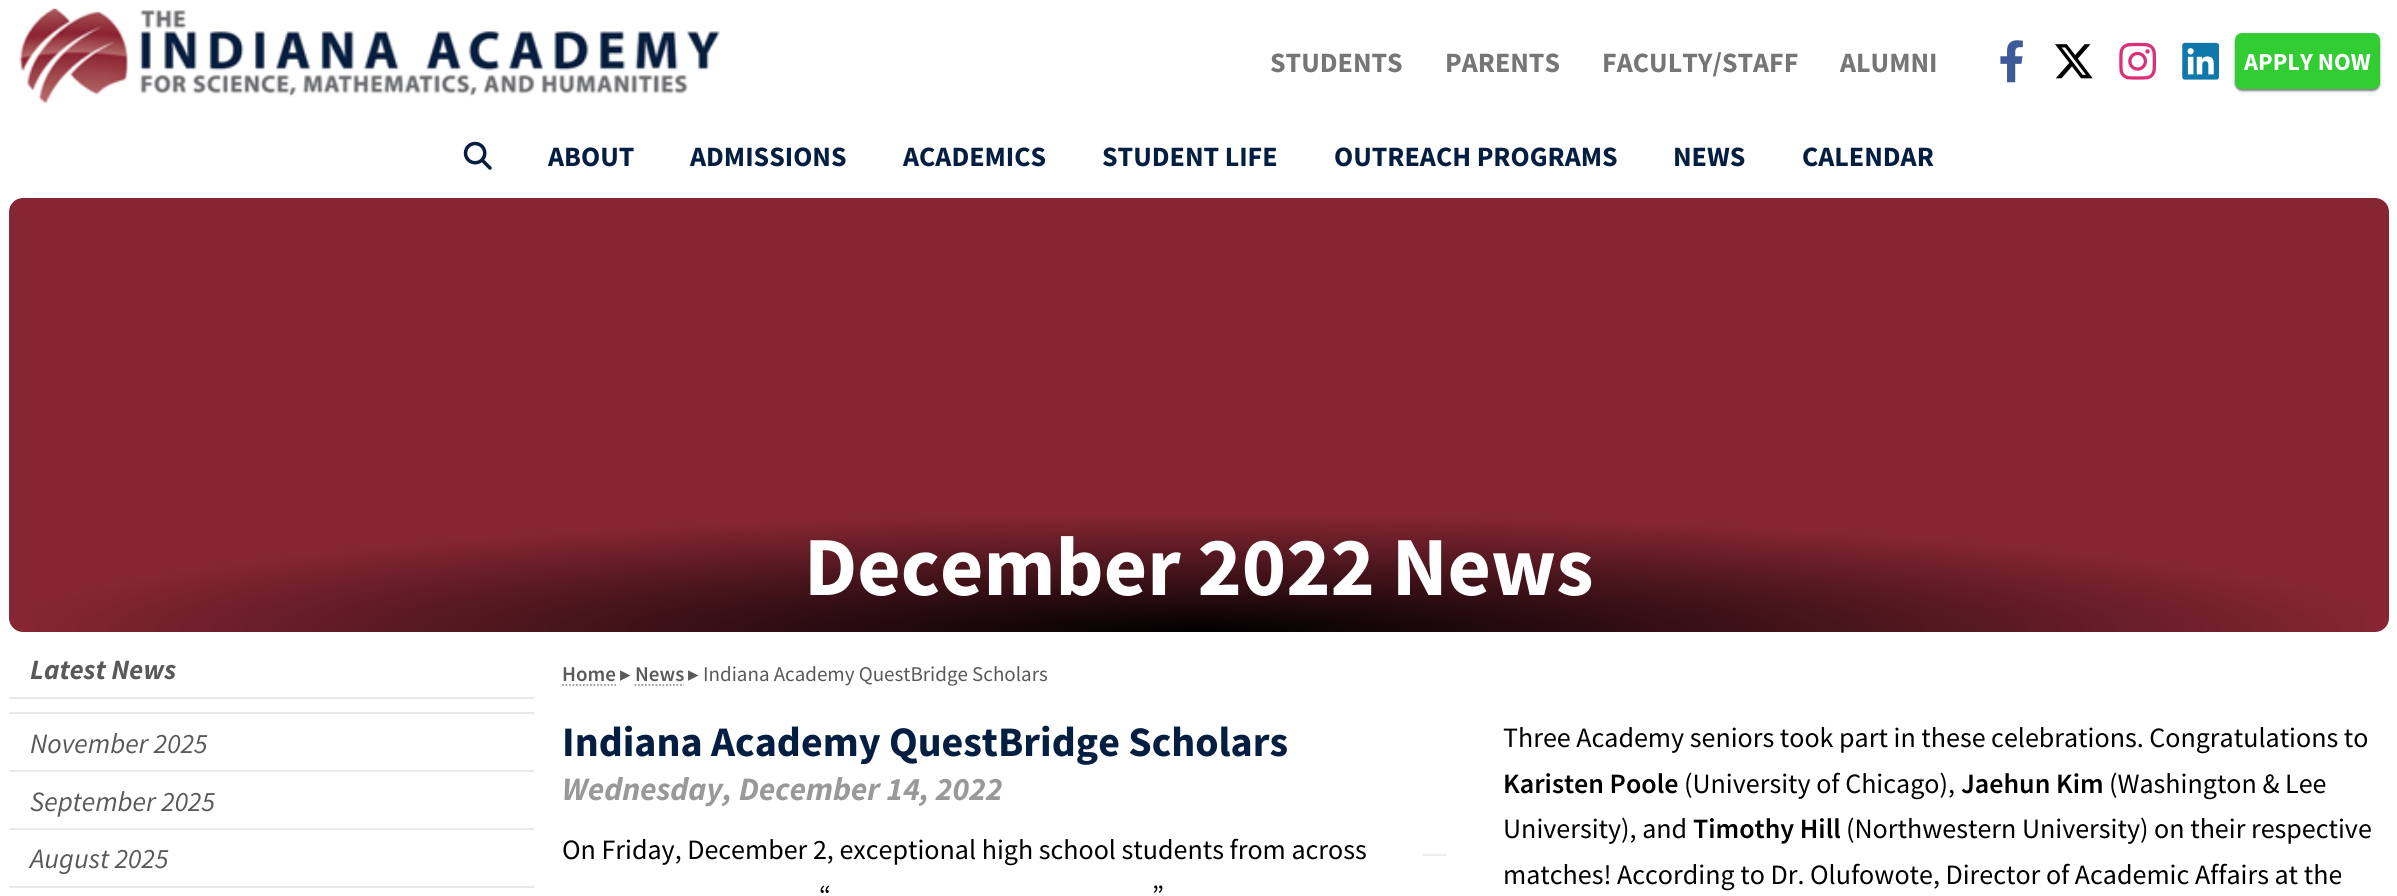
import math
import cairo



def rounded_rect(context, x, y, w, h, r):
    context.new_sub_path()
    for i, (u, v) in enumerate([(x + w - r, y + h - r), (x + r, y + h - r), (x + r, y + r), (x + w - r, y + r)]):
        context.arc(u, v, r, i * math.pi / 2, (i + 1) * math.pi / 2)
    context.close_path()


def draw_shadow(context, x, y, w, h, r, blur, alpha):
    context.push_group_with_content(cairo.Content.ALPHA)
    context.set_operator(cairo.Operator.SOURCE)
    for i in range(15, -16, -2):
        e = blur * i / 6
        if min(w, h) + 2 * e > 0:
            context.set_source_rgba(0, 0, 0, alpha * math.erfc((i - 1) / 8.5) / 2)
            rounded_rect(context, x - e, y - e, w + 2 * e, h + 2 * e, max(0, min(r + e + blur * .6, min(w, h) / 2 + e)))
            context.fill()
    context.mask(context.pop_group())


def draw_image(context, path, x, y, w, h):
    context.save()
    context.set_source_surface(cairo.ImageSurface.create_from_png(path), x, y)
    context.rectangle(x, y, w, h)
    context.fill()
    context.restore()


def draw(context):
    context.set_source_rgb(1, 1, 1)
    context.paint()
    draw_image(context, "images/1.png", 19, 8, 110, 96)
    draw_image(context, "images/2.png", 127, 10, 593, 87)
    draw_image(context, "images/3.png", 2000, 40, 23, 43)
    draw_image(context, "images/4.png", 2055, 44, 38, 35)
    draw_image(context, "images/5.png", 2119, 42, 37, 38)
    draw_image(context, "images/6.png", 2182, 42, 37, 38)
    context.set_source_rgb(0, 0, 0)
    draw_shadow(context, 2235, 35, 145, 56, 7, 1, 0.5)
    gradient = cairo.LinearGradient(2313, -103, 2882, 225)
    gradient.add_color_stop_rgba(0.3, 50 / 255, 205 / 255, 50 / 255, 1)
    gradient.add_color_stop_rgba(0.5, 192 / 255, 240 / 255, 192 / 255, 1)
    gradient.add_color_stop_rgba(0.5, 50 / 255, 205 / 255, 50 / 255, 1)
    gradient.add_color_stop_rgba(1, 50 / 255, 205 / 255, 50 / 255, 1)
    context.set_source(gradient)
    rounded_rect(context, 2235, 33, 145, 56, 7)
    context.fill()
    draw_image(context, "images/7.png", 463, 141, 29, 29)
    context.set_source_rgb(134 / 255, 38 / 255, 51 / 255)
    rounded_rect(context, 9, 198, 2380, 434, 14)
    context.fill()
    gradient = cairo.RadialGradient(0, 0, 0, 0, 0, 1)
    gradient.set_matrix(cairo.Matrix(1 / 1190, 0, 0, 1 / 119, -1 * 1199 / 1190, -1 * 632 / 119))
    gradient.add_color_stop_rgba(0, 0, 0, 0, 1)
    gradient.add_color_stop_rgba(1, 0, 0, 0, 0)
    context.set_source(gradient)
    context.rectangle(33, 516, 2332, 116)
    context.fill()
    context.set_source_rgb(233 / 255, 233 / 255, 233 / 255)
    context.rectangle(9, 697, 525, 2)
    context.fill()
    context.rectangle(9, 712, 525, 2)
    context.fill()
    context.rectangle(9, 770, 525, 2)
    context.fill()
    context.rectangle(9, 828, 525, 2)
    context.fill()
    context.rectangle(9, 886, 525, 2)
    context.fill()
    context.new_path()
    context.move_to(562, 685)
    context.line_to(616, 685)
    context.set_source_rgb(153 / 255, 153 / 255, 153 / 255)
    context.set_line_width(1.8)
    context.set_dash([1.75, 1.75])
    context.stroke()
    context.new_path()
    context.move_to(634.5, 685)
    context.line_to(684, 685)
    context.stroke()
    context.set_source_rgb(238 / 255, 238 / 255, 238 / 255)
    context.rectangle(1423, 854, 24, 2)
    context.fill()
    context.select_font_face("Source Sans Pro", cairo.FontSlant.NORMAL, cairo.FontWeight.BOLD)
    context.set_font_size(28)
    context.set_source_rgb(118 / 255, 118 / 255, 118 / 255)
    context.move_to(1270, 72)
    context.show_text("STUDENTS")
    context.move_to(1445, 72)
    context.show_text("PARENTS")
    context.move_to(1602, 72)
    context.show_text("FACULTY/STAFF")
    context.move_to(1840, 72)
    context.show_text("ALUMNI")
    context.set_font_size(24.5)
    context.set_source_rgb(1, 1, 1)
    context.move_to(2244, 70)
    context.show_text("APPLY NOW")
    context.set_font_size(28)
    context.set_source_rgb(4 / 255, 30 / 255, 66 / 255)
    context.move_to(548, 166)
    context.show_text("ABOUT")
    context.move_to(690, 166)
    context.show_text("ADMISSIONS")
    context.move_to(903, 166)
    context.show_text("ACADEMICS")
    context.move_to(1102, 166)
    context.show_text("STUDENT LIFE")
    context.move_to(1334, 166)
    context.show_text("OUTREACH PROGRAMS")
    context.move_to(1673, 166)
    context.show_text("NEWS")
    context.move_to(1802, 166)
    context.show_text("CALENDAR")
    context.set_font_size(84)
    context.set_source_rgb(1, 1, 1)
    context.move_to(804, 595)
    context.show_text("December 2022 News")
    context.select_font_face("Source Sans Pro", cairo.FontSlant.ITALIC, cairo.FontWeight.BOLD)
    context.set_font_size(28)
    context.set_source_rgb(89 / 255, 89 / 255, 89 / 255)
    context.move_to(30, 679)
    context.show_text("Latest News")
    context.select_font_face("Source Sans Pro", cairo.FontSlant.ITALIC)
    context.move_to(30, 753)
    context.show_text("November 2025")
    context.move_to(30, 811)
    context.show_text("September 2025")
    context.move_to(30, 868)
    context.show_text("August 2025")
    context.select_font_face("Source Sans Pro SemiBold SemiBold")
    context.set_font_size(21)
    context.move_to(562, 681)
    context.show_text("Home")
    context.select_font_face("DejaVu Sans")
    context.move_to(620, 681)
    context.show_text("▸")
    context.select_font_face("Source Sans Pro SemiBold SemiBold")
    context.move_to(635, 681)
    context.show_text("News")
    context.select_font_face("DejaVu Sans")
    context.move_to(688, 681)
    context.show_text("▸")
    context.select_font_face("Source Sans Pro")
    context.move_to(703, 681)
    context.show_text("Indiana Academy QuestBridge Scholars")
    context.select_font_face("Source Sans Pro", cairo.FontSlant.NORMAL, cairo.FontWeight.BOLD)
    context.set_font_size(42)
    context.set_source_rgb(4 / 255, 30 / 255, 66 / 255)
    context.move_to(562, 756)
    context.show_text("Indiana Academy QuestBridge Scholars")
    context.select_font_face("Source Sans Pro")
    context.set_font_size(28)
    context.set_source_rgb(0, 0, 0)
    context.move_to(1503, 747)
    context.show_text("Three Academy seniors took part in these celebrations. Congratulations to")
    context.select_font_face("Source Sans Pro SemiBold SemiBold")
    context.move_to(1503, 793)
    context.show_text("Karisten Poole")
    context.select_font_face("Source Sans Pro")
    context.move_to(1684, 793)
    context.show_text("(University of Chicago),")
    context.select_font_face("Source Sans Pro SemiBold SemiBold")
    context.move_to(1961, 793)
    context.show_text("Jaehun Kim")
    context.select_font_face("Source Sans Pro")
    context.move_to(2109, 793)
    context.show_text("(Washington & Lee")
    context.move_to(1503, 838)
    context.show_text("University), and")
    context.select_font_face("Source Sans Pro SemiBold SemiBold")
    context.move_to(1693, 838)
    context.show_text("Timothy Hill")
    context.select_font_face("Source Sans Pro")
    context.move_to(1846, 838)
    context.show_text("(Northwestern University) on their respective")
    context.move_to(1503, 884)
    context.show_text("matches! According to Dr. Olufowote, Director of Academic Affairs at the")
    context.select_font_face("Source Sans Pro", cairo.FontSlant.ITALIC, cairo.FontWeight.BOLD)
    context.set_font_size(32.75)
    context.set_source_rgb(153 / 255, 153 / 255, 153 / 255)
    context.move_to(562, 800)
    context.show_text("Wednesday, December 14, 2022")
    context.select_font_face("Source Sans Pro")
    context.set_font_size(28)
    context.set_source_rgb(0, 0, 0)
    context.move_to(562, 859)
    context.show_text("On Friday, December 2, exceptional high school students from across")
    context.move_to(819, 905)
    context.show_text("“")
    context.move_to(1152, 905)
    context.show_text("”")


surface = cairo.ImageSurface(cairo.Format.RGB24, 2397, 896)
context = cairo.Context(surface)
options = cairo.FontOptions()
options.set_hint_metrics(cairo.HintMetrics.OFF)
options.set_hint_style(cairo.HintStyle.NONE)
context.set_font_options(options)
context.set_miter_limit(4)
draw(context)
surface.write_to_png("out.png")
